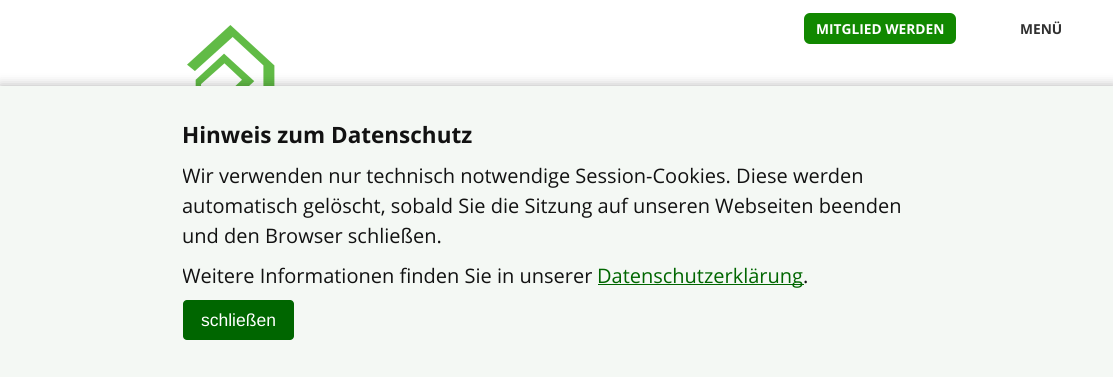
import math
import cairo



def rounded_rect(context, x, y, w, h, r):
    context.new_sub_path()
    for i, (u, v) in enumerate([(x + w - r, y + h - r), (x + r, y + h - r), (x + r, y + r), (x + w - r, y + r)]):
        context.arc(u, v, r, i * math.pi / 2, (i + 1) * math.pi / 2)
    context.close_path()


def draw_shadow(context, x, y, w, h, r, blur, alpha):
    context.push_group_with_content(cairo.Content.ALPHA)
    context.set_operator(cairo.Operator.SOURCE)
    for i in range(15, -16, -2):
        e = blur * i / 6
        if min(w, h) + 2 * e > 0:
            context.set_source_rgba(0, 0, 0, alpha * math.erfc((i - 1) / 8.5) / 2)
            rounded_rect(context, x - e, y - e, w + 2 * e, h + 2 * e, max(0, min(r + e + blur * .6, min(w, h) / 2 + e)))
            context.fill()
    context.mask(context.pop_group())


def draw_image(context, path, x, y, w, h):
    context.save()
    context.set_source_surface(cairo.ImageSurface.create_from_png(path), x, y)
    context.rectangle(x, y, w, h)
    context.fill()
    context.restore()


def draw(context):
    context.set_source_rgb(1, 1, 1)
    context.paint()
    draw_image(context, "images/1.png", 187, 25, 88, 61)
    context.set_source_rgb(17 / 255, 136 / 255, 0)
    rounded_rect(context, 804, 13, 152, 31, 6)
    context.fill()
    context.set_source_rgb(0, 0, 0)
    draw_shadow(context, 0, 86, 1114, 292, 0, 6, 0.3)
    context.set_source_rgb(244 / 255, 248 / 255, 244 / 255)
    context.rectangle(0, 86, 1113, 291)
    context.fill()
    context.set_source_rgb(0, 102 / 255, 0)
    context.rectangle(598, 284, 206, 1)
    context.fill()
    rounded_rect(context, 183, 300, 111, 40, 4)
    context.fill()
    context.select_font_face("Open Sans", cairo.FontSlant.NORMAL, cairo.FontWeight.BOLD)
    context.set_font_size(13.75)
    context.set_source_rgb(1, 1, 1)
    context.move_to(816, 34)
    context.show_text("MITGLIED WERDEN")
    context.set_source_rgb(48 / 255, 48 / 255, 48 / 255)
    context.move_to(1020, 34)
    context.show_text("MENÜ")
    context.set_font_size(22.5)
    context.set_source_rgb(18 / 255, 18 / 255, 18 / 255)
    context.move_to(182, 143)
    context.show_text("Hinweis zum Datenschutz")
    context.save()
    context.rectangle(183, 111, 750, 229)
    context.clip()
    context.select_font_face("Open Sans")
    context.set_font_size(20)
    context.move_to(182, 183)
    context.show_text("Wir verwenden nur technisch notwendige Session-Cookies. Diese werden")
    context.restore()
    context.select_font_face("Open Sans")
    context.set_font_size(20)
    context.move_to(182, 213)
    context.show_text("automatisch gelöscht, sobald Sie die Sitzung auf unseren Webseiten beenden")
    context.move_to(182, 243)
    context.show_text("und den Browser schließen.")
    context.save()
    context.rectangle(183, 111, 750, 229)
    context.clip()
    context.move_to(182, 283)
    context.show_text("Weitere Informationen finden Sie in unserer")
    context.restore()
    context.set_source_rgb(0, 102 / 255, 0)
    context.move_to(597, 283)
    context.show_text("Datenschutzerklärung")
    context.set_source_rgb(18 / 255, 18 / 255, 18 / 255)
    context.move_to(803, 283)
    context.show_text(".")
    context.select_font_face("Liberation Sans")
    context.set_font_size(17.5)
    context.set_source_rgb(1, 1, 1)
    context.move_to(201, 326)
    context.show_text("schließen")


surface = cairo.ImageSurface(cairo.Format.RGB24, 1113, 377)
context = cairo.Context(surface)
options = cairo.FontOptions()
options.set_hint_metrics(cairo.HintMetrics.OFF)
options.set_hint_style(cairo.HintStyle.NONE)
context.set_font_options(options)
context.set_miter_limit(4)
draw(context)
surface.write_to_png("out.png")
